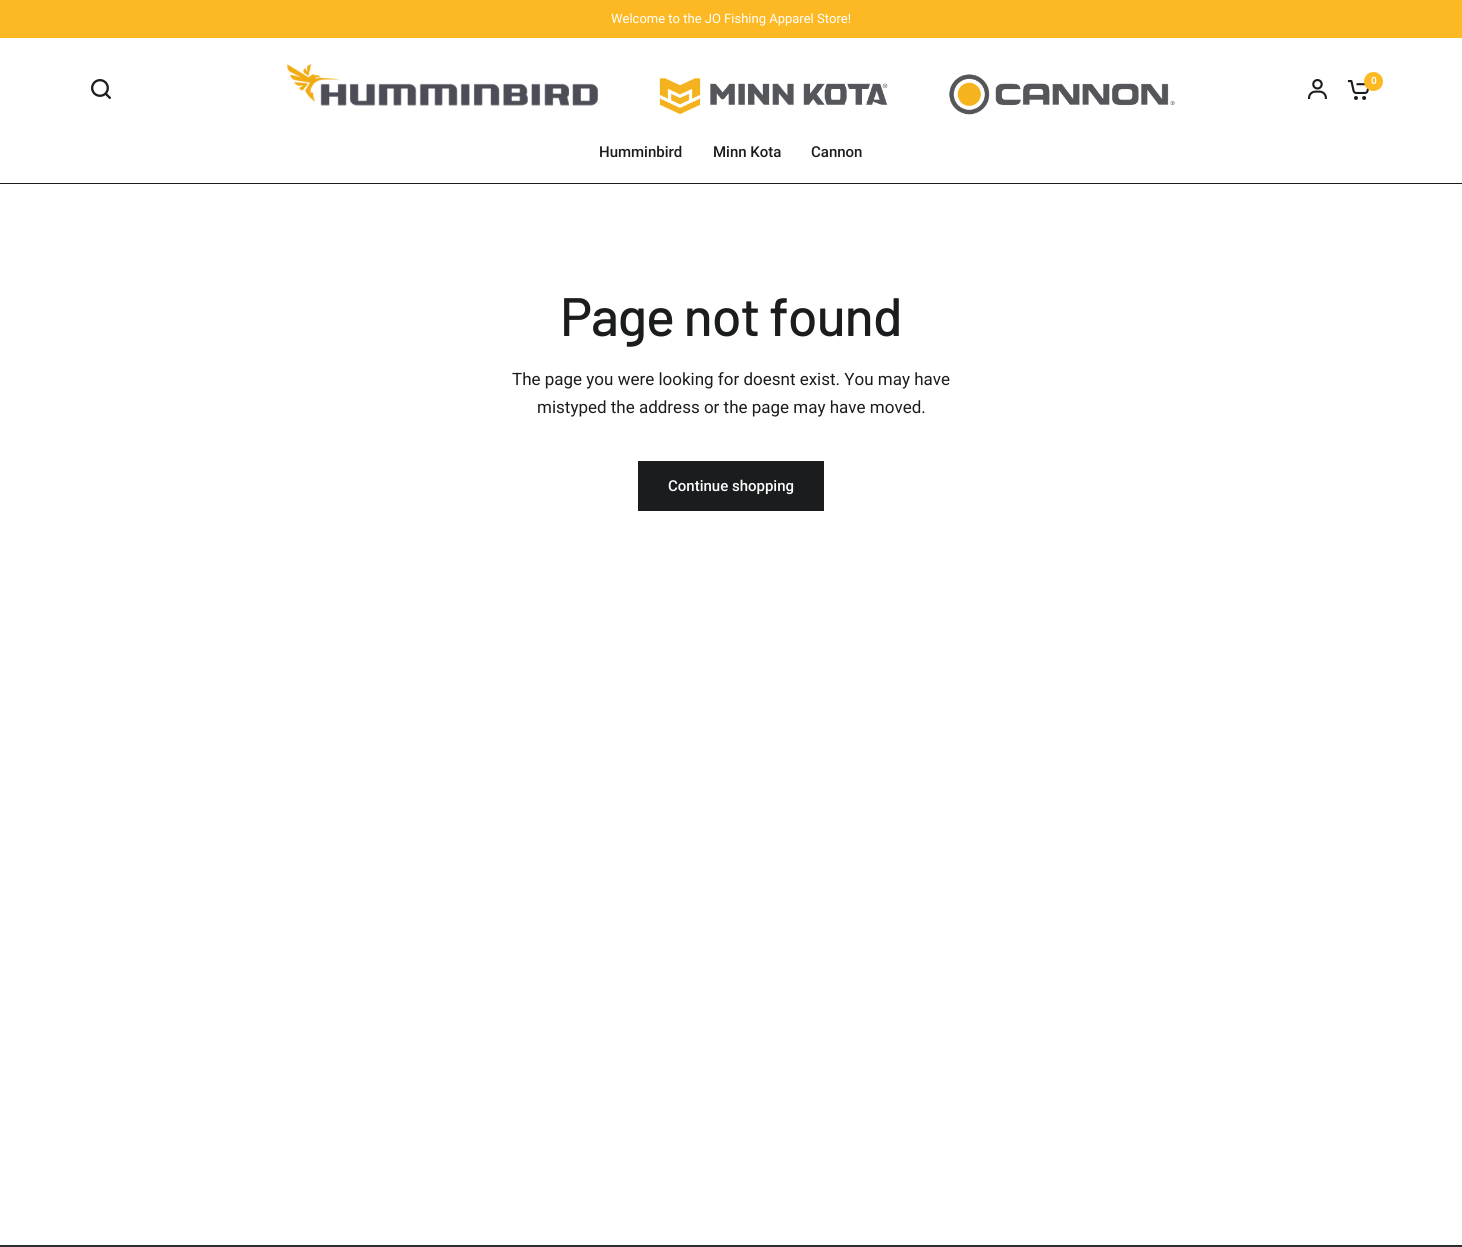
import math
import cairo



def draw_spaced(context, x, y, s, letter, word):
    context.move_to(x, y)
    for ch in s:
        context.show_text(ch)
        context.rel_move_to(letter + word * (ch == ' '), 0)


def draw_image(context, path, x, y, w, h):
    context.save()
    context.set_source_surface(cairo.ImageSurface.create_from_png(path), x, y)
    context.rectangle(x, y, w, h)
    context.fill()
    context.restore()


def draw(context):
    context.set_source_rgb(44 / 255, 45 / 255, 46 / 255)
    context.paint()
    context.set_source_rgb(253 / 255, 185 / 255, 36 / 255)
    context.rectangle(0, 0, 1462, 38)
    context.fill()
    context.set_source_rgb(1, 1, 1)
    context.rectangle(0, 38, 1462, 145)
    context.fill()
    draw_image(context, "images/1.png", 91, 79, 20, 20)
    draw_image(context, "images/2.png", 287, 63, 312, 43)
    draw_image(context, "images/3.png", 659, 78, 229, 37)
    draw_image(context, "images/4.png", 949, 74, 226, 41)
    draw_image(context, "images/5.png", 1308, 79, 19, 20)
    draw_image(context, "images/6.png", 1347, 80, 22, 20)
    context.set_source_rgb(253 / 255, 185 / 255, 36 / 255)
    context.arc(1373.5, 81.5, 9.5, 0, 2 * math.pi)
    context.fill()
    context.set_source_rgb(26 / 255, 28 / 255, 29 / 255)
    context.rectangle(0, 183, 1462, 1)
    context.fill()
    context.set_source_rgb(1, 1, 1)
    context.rectangle(0, 184, 1462, 1061)
    context.fill()
    context.set_source_rgb(26 / 255, 28 / 255, 29 / 255)
    context.rectangle(638, 461, 186, 50)
    context.fill()
    context.select_font_face("Roboto")
    context.set_font_size(13)
    context.set_source_rgb(1, 1, 1)
    context.move_to(611, 23)
    context.show_text("Welcome to the JO Fishing Apparel Store!")
    context.select_font_face("Roboto SemiBold")
    context.set_font_size(10)
    context.move_to(1371, 84)
    context.show_text("0")
    context.select_font_face("Roboto Medium")
    context.set_font_size(15)
    context.set_source_rgb(26 / 255, 28 / 255, 29 / 255)
    context.move_to(599, 157)
    context.show_text("Humminbird")
    context.move_to(713, 157)
    context.show_text("Minn Kota")
    context.move_to(811, 157)
    context.show_text("Cannon")
    context.select_font_face("Barlow Medium")
    context.set_font_size(54)
    draw_spaced(context, 560, 336, "Page not found", -1.1, 0)
    context.select_font_face("Roboto")
    context.set_font_size(17)
    context.move_to(512, 385)
    context.show_text("The page you were looking for doesnt exist. You may have")
    context.move_to(537, 413)
    context.show_text("mistyped the address or the page may have moved.")
    context.select_font_face("Roboto Medium")
    context.set_font_size(15)
    context.set_source_rgb(1, 1, 1)
    context.move_to(668, 491)
    context.show_text("Continue shopping")


surface = cairo.ImageSurface(cairo.Format.RGB24, 1462, 1247)
context = cairo.Context(surface)
options = cairo.FontOptions()
options.set_hint_metrics(cairo.HintMetrics.OFF)
options.set_hint_style(cairo.HintStyle.NONE)
context.set_font_options(options)
context.set_miter_limit(4)
draw(context)
surface.write_to_png("out.png")
